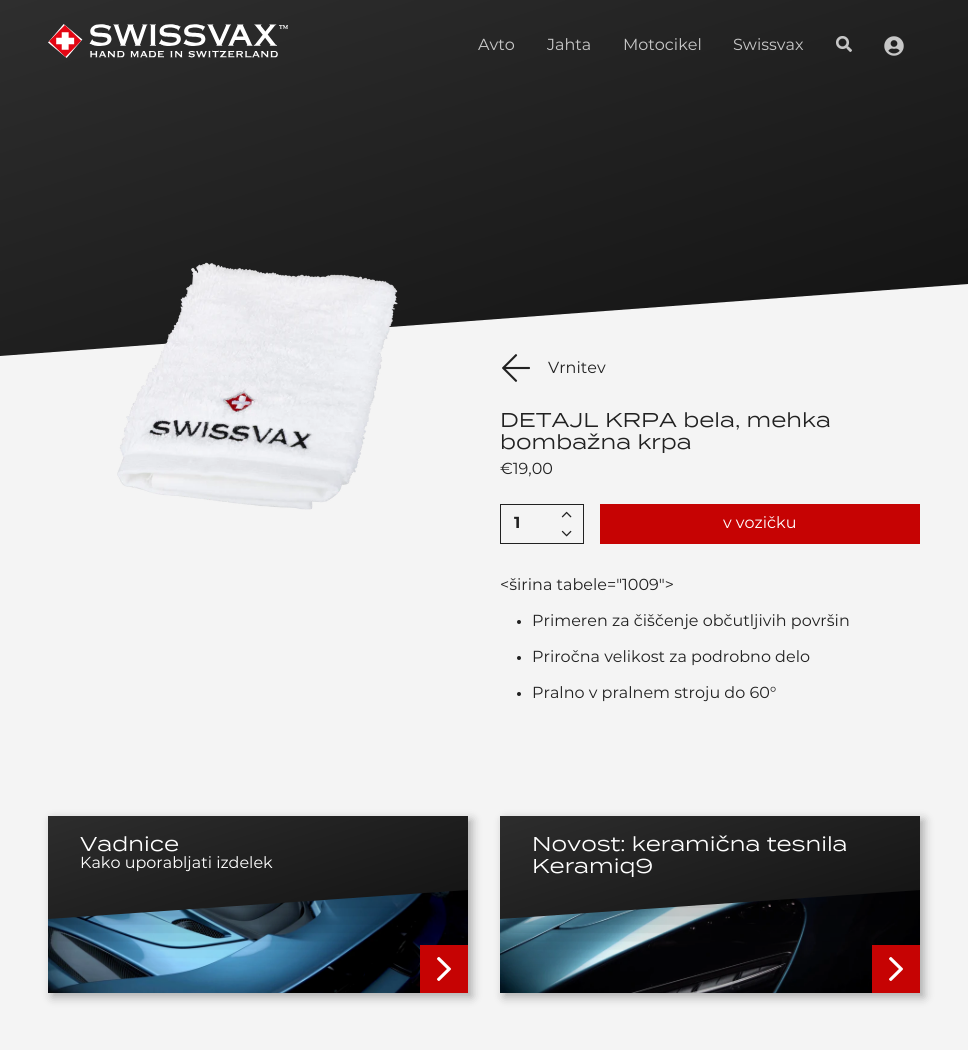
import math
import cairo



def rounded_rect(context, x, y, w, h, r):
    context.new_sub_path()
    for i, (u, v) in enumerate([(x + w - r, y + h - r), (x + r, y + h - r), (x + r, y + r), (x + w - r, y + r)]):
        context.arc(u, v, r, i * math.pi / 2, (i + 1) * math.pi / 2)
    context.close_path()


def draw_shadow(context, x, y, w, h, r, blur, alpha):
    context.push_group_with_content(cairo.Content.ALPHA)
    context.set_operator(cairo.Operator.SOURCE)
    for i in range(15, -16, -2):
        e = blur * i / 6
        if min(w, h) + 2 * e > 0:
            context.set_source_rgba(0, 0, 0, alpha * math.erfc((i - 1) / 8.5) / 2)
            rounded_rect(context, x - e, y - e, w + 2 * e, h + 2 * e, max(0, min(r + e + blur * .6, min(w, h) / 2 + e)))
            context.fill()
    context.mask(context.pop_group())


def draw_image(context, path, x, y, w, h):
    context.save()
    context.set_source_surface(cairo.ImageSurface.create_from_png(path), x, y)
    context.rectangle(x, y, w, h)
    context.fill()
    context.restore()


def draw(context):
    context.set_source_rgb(244 / 255, 244 / 255, 244 / 255)
    context.paint()
    gradient = cairo.LinearGradient(387, -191, 581, 431)
    gradient.add_color_stop_rgba(0, 49 / 255, 49 / 255, 49 / 255, 1)
    gradient.add_color_stop_rgba(1, 20 / 255, 20 / 255, 20 / 255, 1)
    context.set_source(gradient)
    context.new_path()
    context.move_to(0, -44)
    context.line_to(968, -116)
    context.line_to(968, 284)
    context.line_to(0, 356)
    context.close_path()
    context.fill()
    draw_image(context, "images/1.png", 48, 24, 240, 34)
    draw_image(context, "images/2.png", 836, 36, 16, 16)
    draw_image(context, "images/3.png", 884, 36, 20, 20)
    draw_image(context, "images/4.png", 117, 262, 281, 248)
    draw_image(context, "images/5.png", 502, 354, 28, 28)
    context.rectangle(500.5, 504.5, 83, 39)
    context.set_source_rgb(33 / 255, 33 / 255, 33 / 255)
    context.set_line_width(1)
    context.stroke()
    draw_image(context, "images/6.png", 561, 511, 11, 7)
    draw_image(context, "images/7.png", 561, 530, 11, 7)
    context.set_source_rgb(198 / 255, 3 / 255, 3 / 255)
    context.rectangle(600, 504, 320, 40)
    context.fill()
    context.set_source_rgb(33 / 255, 33 / 255, 33 / 255)
    context.arc(519, 622, 2, 0, 2 * math.pi)
    context.fill()
    context.arc(519, 658, 2, 0, 2 * math.pi)
    context.fill()
    context.arc(519, 694, 2, 0, 2 * math.pi)
    context.fill()
    context.set_source_rgb(0, 0, 0)
    draw_shadow(context, 52, 820, 420, 177, 0, 5, 0.3)
    draw_image(context, "images/9.png", 48, 890, 420, 103)
    draw_shadow(context, 504, 820, 420, 177, 0, 5, 0.3)
    draw_image(context, "images/10.png", 500, 890, 420, 103)
    context.save()
    context.rectangle(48, 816, 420, 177)
    context.clip()
    draw_shadow(context, 48, 801, 420, 128, 0, 25, 0.3)
    context.restore()
    context.save()
    context.rectangle(48, 816, 420, 177)
    context.clip()
    gradient = cairo.LinearGradient(222, 726, 294, 955)
    gradient.add_color_stop_rgba(0, 49 / 255, 49 / 255, 49 / 255, 1)
    gradient.add_color_stop_rgba(1, 20 / 255, 20 / 255, 20 / 255, 1)
    context.set_source(gradient)
    context.new_path()
    context.move_to(48, 791)
    context.line_to(468, 762)
    context.line_to(468, 890)
    context.line_to(48, 919)
    context.close_path()
    context.fill()
    context.restore()
    context.set_source_rgb(198 / 255, 3 / 255, 3 / 255)
    context.rectangle(420, 945, 48, 48)
    context.fill()
    draw_image(context, "images/8.png", 437, 957, 14, 24)
    context.save()
    context.rectangle(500, 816, 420, 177)
    context.clip()
    context.set_source_rgb(0, 0, 0)
    draw_shadow(context, 500, 801, 420, 128, 0, 25, 0.3)
    context.restore()
    context.save()
    context.rectangle(500, 816, 420, 177)
    context.clip()
    gradient = cairo.LinearGradient(674, 726, 746, 955)
    gradient.add_color_stop_rgba(0, 49 / 255, 49 / 255, 49 / 255, 1)
    gradient.add_color_stop_rgba(1, 20 / 255, 20 / 255, 20 / 255, 1)
    context.set_source(gradient)
    context.new_path()
    context.move_to(500, 791)
    context.line_to(920, 762)
    context.line_to(920, 890)
    context.line_to(500, 919)
    context.close_path()
    context.fill()
    context.restore()
    context.rectangle(872, 945, 48, 48)
    context.fill()
    draw_image(context, "images/8.png", 889, 957, 14, 24)
    context.select_font_face("Montserrat")
    context.set_font_size(16)
    context.set_source_rgb(201 / 255, 201 / 255, 201 / 255)
    context.move_to(478, 50)
    context.show_text("Avto")
    context.move_to(547, 50)
    context.show_text("Jahta")
    context.move_to(623, 50)
    context.show_text("Motocikel")
    context.move_to(733, 50)
    context.show_text("Swissvax")
    context.set_source_rgb(33 / 255, 33 / 255, 33 / 255)
    context.move_to(548, 373)
    context.show_text("Vrnitev")
    context.select_font_face("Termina")
    context.set_font_size(20)
    context.move_to(500, 427)
    context.show_text("DETAJL KRPA bela, mehka")
    context.move_to(500, 449)
    context.show_text("bombažna krpa")
    context.select_font_face("Montserrat")
    context.set_font_size(16)
    context.move_to(500, 474)
    context.show_text("€19,00")
    context.select_font_face("Montserrat", cairo.FontSlant.NORMAL, cairo.FontWeight.BOLD)
    context.move_to(514, 528)
    context.show_text("1")
    context.select_font_face("Montserrat")
    context.set_source_rgb(1, 1, 1)
    context.move_to(723, 528)
    context.show_text("v vozičku")
    context.set_source_rgb(33 / 255, 33 / 255, 33 / 255)
    context.move_to(500, 590)
    context.show_text("<širina tabele=\"1009\">")
    context.move_to(532, 626)
    context.show_text("Primeren za čiščenje občutljivih površin")
    context.move_to(532, 662)
    context.show_text("Priročna velikost za podrobno delo")
    context.move_to(532, 698)
    context.show_text("Pralno v pralnem stroju do 60°")
    context.select_font_face("Termina")
    context.set_font_size(20)
    context.set_source_rgb(1, 1, 1)
    context.move_to(80, 851)
    context.show_text("Vadnice")
    context.select_font_face("Montserrat")
    context.set_font_size(16)
    context.move_to(80, 868)
    context.show_text("Kako uporabljati izdelek")
    context.select_font_face("Termina")
    context.set_font_size(20)
    context.move_to(532, 851)
    context.show_text("Novost: keramična tesnila")
    context.move_to(532, 873)
    context.show_text("Keramiq9")


surface = cairo.ImageSurface(cairo.Format.RGB24, 968, 1050)
context = cairo.Context(surface)
options = cairo.FontOptions()
options.set_hint_metrics(cairo.HintMetrics.OFF)
options.set_hint_style(cairo.HintStyle.NONE)
context.set_font_options(options)
context.set_miter_limit(4)
draw(context)
surface.write_to_png("out.png")
